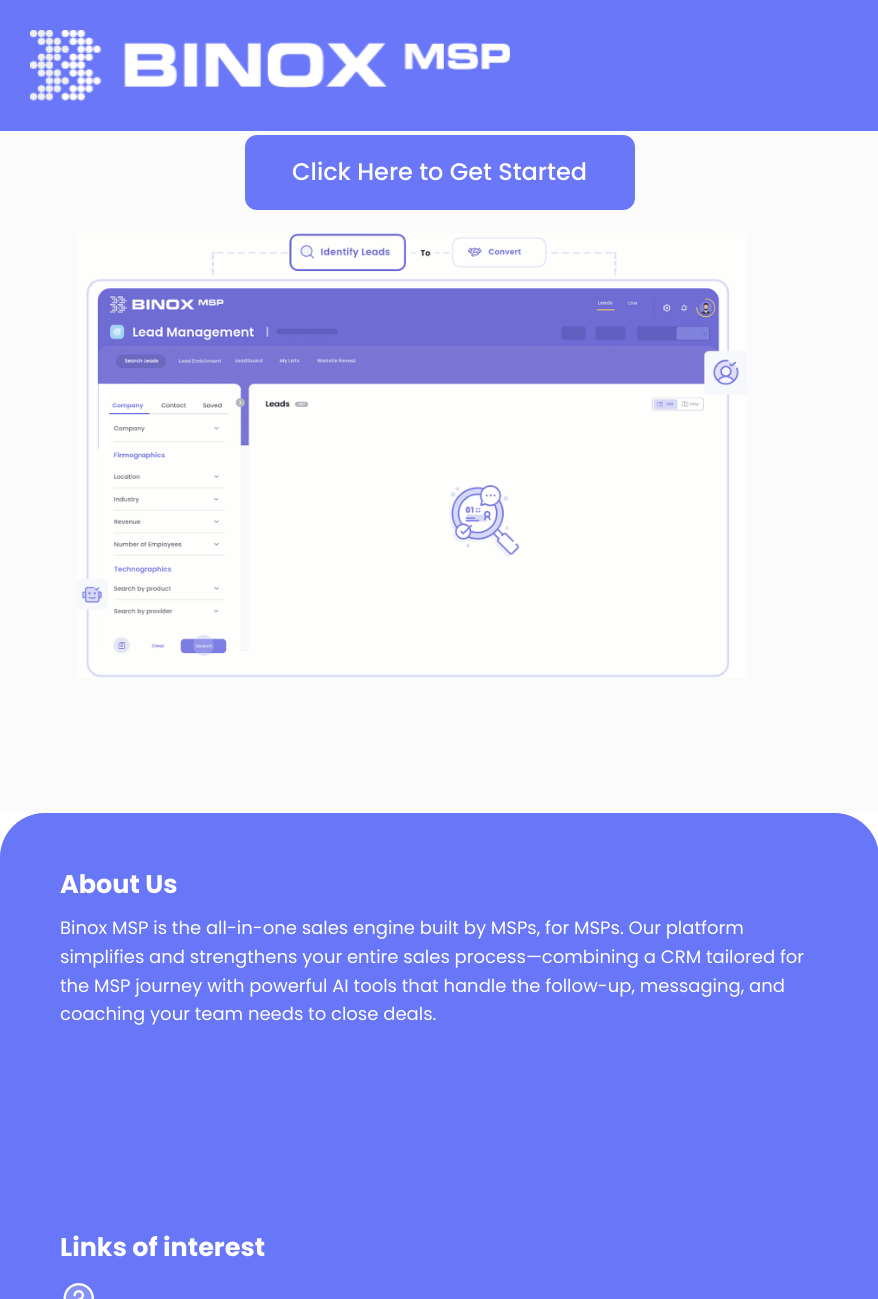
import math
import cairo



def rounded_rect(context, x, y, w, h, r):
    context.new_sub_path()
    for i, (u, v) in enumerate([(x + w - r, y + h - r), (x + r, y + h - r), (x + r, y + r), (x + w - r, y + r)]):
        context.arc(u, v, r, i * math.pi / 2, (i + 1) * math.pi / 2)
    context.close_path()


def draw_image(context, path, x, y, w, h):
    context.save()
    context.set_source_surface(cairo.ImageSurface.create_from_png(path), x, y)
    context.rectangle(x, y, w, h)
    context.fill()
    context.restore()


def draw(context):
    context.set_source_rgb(1, 1, 1)
    context.paint()
    context.set_source_rgb(105 / 255, 119 / 255, 248 / 255)
    context.rectangle(0, 0, 878, 131)
    context.fill()
    draw_image(context, "images/1.png", 30, 30, 480, 71)
    context.set_source_rgb(251 / 255, 251 / 255, 251 / 255)
    context.rectangle(0, 131, 878, 682)
    context.fill()
    context.set_source_rgb(105 / 255, 119 / 255, 248 / 255)
    rounded_rect(context, 246.5, 136.5, 387, 72, 10.5)
    context.fill_preserve()
    context.set_line_width(3)
    context.stroke()
    draw_image(context, "images/2.png", 77, 233, 670, 445)
    context.new_path()
    context.move_to(45, 813)
    context.line_to(834, 813)
    context.curve_to(859, 813, 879, 833, 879, 858)
    context.line_to(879, 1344)
    context.line_to(0, 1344)
    context.line_to(0, 858)
    context.curve_to(0, 833, 20, 813, 45, 813)
    context.close_path()
    context.fill()
    context.set_source_rgba(105 / 255, 119 / 255, 248 / 255, 0.5)
    context.new_path()
    context.move_to(45, 813)
    context.line_to(834, 813)
    context.curve_to(859, 813, 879, 833, 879, 858)
    context.line_to(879, 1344)
    context.line_to(0, 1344)
    context.line_to(0, 858)
    context.curve_to(0, 833, 20, 813, 45, 813)
    context.close_path()
    context.fill()
    draw_image(context, "images/3.png", 63, 1283, 31, 16)
    context.select_font_face("Poppins Medium")
    context.set_font_size(24)
    context.set_source_rgb(1, 1, 1)
    context.move_to(292, 180)
    context.show_text("Click Here to Get Started")
    context.select_font_face("Poppins", cairo.FontSlant.NORMAL, cairo.FontWeight.BOLD)
    context.set_font_size(25.5)
    context.move_to(60, 893)
    context.show_text("About Us")
    context.select_font_face("Poppins")
    context.set_font_size(18)
    context.move_to(60, 934)
    context.show_text("Binox MSP is the all-in-one sales engine built by MSPs, for MSPs. Our platform")
    context.move_to(60, 963)
    context.show_text("simplifies and strengthens your entire sales process—combining a CRM tailored for")
    context.move_to(60, 992)
    context.show_text("the MSP journey with powerful AI tools that handle the follow-up, messaging, and")
    context.move_to(60, 1020)
    context.show_text("coaching your team needs to close deals.")
    context.select_font_face("Poppins", cairo.FontSlant.NORMAL, cairo.FontWeight.BOLD)
    context.set_font_size(25.5)
    context.move_to(60, 1256)
    context.show_text("Links of interest")


surface = cairo.ImageSurface(cairo.Format.RGB24, 878, 1299)
context = cairo.Context(surface)
options = cairo.FontOptions()
options.set_hint_metrics(cairo.HintMetrics.OFF)
options.set_hint_style(cairo.HintStyle.NONE)
context.set_font_options(options)
context.set_miter_limit(4)
draw(context)
surface.write_to_png("out.png")
